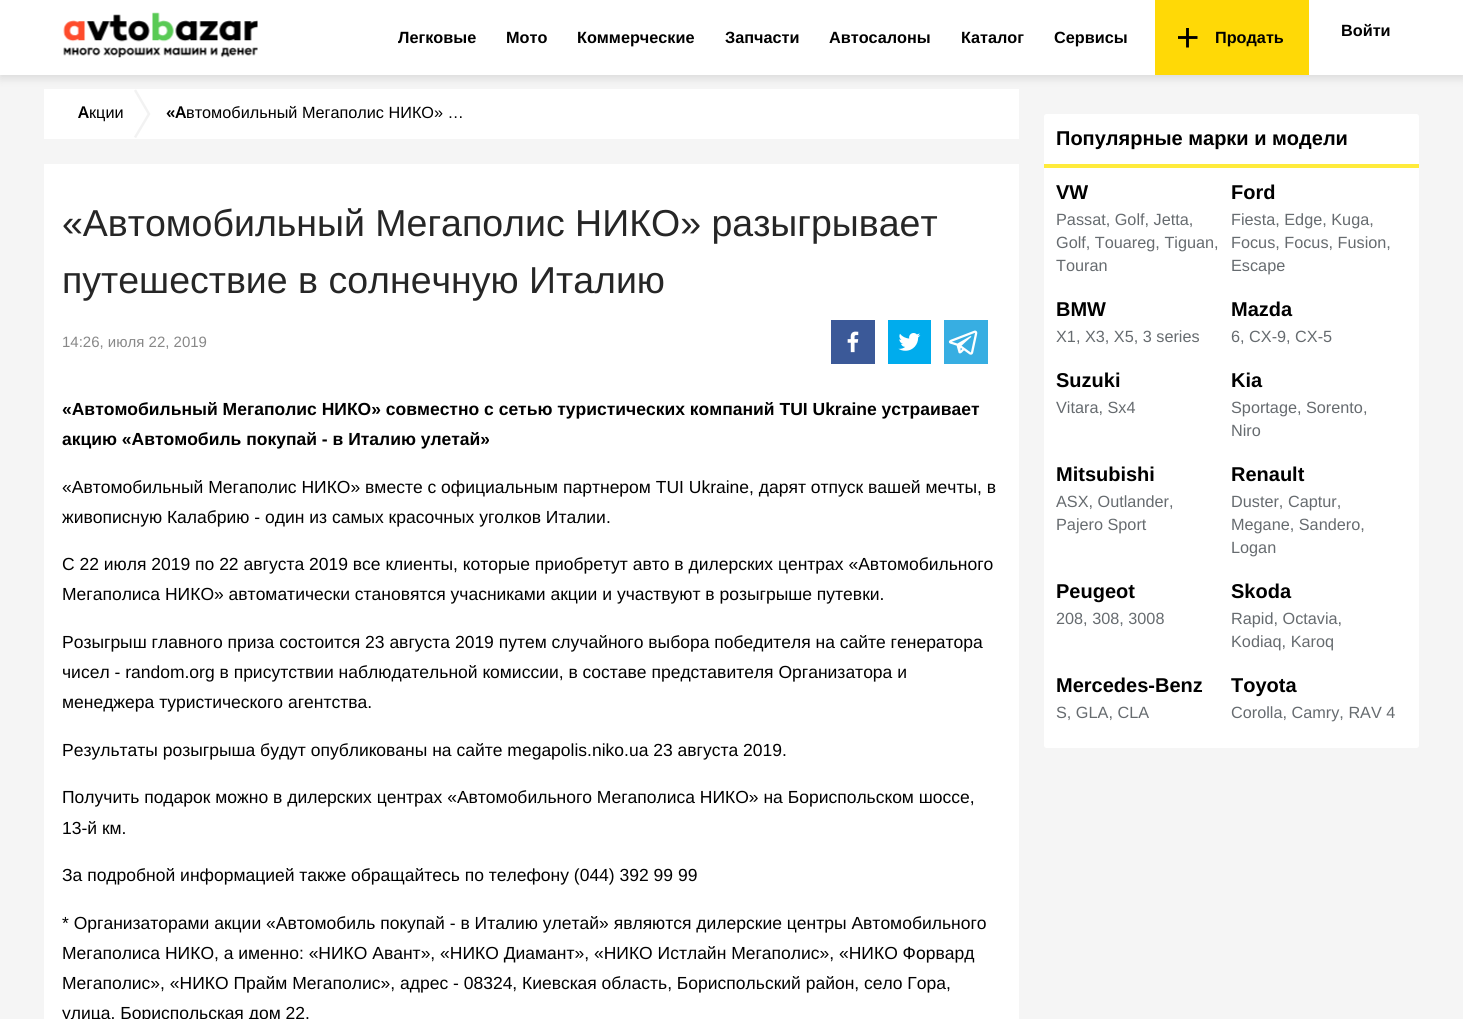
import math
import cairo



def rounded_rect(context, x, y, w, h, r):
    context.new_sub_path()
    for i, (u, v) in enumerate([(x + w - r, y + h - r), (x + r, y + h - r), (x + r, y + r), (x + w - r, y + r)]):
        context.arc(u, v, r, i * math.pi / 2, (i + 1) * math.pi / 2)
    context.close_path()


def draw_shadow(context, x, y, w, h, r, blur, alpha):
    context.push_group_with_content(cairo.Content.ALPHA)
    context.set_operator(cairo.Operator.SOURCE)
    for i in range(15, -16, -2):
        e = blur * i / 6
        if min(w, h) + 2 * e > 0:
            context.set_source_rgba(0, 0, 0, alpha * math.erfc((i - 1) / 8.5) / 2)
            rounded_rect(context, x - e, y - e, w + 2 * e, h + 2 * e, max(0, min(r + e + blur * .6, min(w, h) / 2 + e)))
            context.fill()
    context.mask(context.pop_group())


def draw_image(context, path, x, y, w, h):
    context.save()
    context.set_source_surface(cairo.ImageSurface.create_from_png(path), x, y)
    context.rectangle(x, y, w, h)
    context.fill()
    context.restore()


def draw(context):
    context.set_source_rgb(245 / 255, 245 / 255, 245 / 255)
    context.paint()
    context.set_source_rgb(1, 1, 1)
    context.rectangle(44, 89, 975, 50)
    context.fill()
    context.new_path()
    context.move_to(135, 90)
    context.line_to(149, 114)
    context.line_to(135, 137.5)
    context.set_source_rgb(242 / 255, 242 / 255, 242 / 255)
    context.set_line_width(2.5)
    context.stroke()
    context.set_source_rgb(0, 0, 0)
    draw_shadow(context, 0, 3, 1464, 75, 0, 5, 0.12)
    context.set_source_rgb(1, 1, 1)
    context.rectangle(0, 0, 1463, 75)
    context.fill()
    draw_image(context, "images/1.png", 63, 12, 195, 46)
    context.set_source_rgb(1, 217 / 255, 6 / 255)
    context.rectangle(1155, 0, 154, 75)
    context.fill()
    draw_image(context, "images/2.png", 1178, 28, 20, 20)
    context.set_source_rgb(1, 1, 1)
    context.rectangle(44, 164, 975, 855)
    context.fill()
    draw_image(context, "images/3.png", 831, 320, 44, 44)
    draw_image(context, "images/4.png", 888, 320, 43, 44)
    draw_image(context, "images/5.png", 944, 320, 44, 44)
    rounded_rect(context, 1044, 114, 375, 634, 2.5)
    context.fill()
    context.set_source_rgb(1, 235 / 255, 59 / 255)
    context.rectangle(1044, 164, 375, 4)
    context.fill()
    context.select_font_face("Liberation Sans", cairo.FontSlant.NORMAL, cairo.FontWeight.BOLD)
    context.set_font_size(16.25)
    context.set_source_rgb(0, 0, 0)
    context.move_to(398, 43)
    context.show_text("Легковые")
    context.move_to(506, 43)
    context.show_text("Мото")
    context.move_to(577, 43)
    context.show_text("Коммерческие")
    context.move_to(725, 43)
    context.show_text("Запчасти")
    context.move_to(829, 43)
    context.show_text("Автосалоны")
    context.move_to(961, 43)
    context.show_text("Каталог")
    context.move_to(1054, 43)
    context.show_text("Сервисы")
    context.move_to(1215, 43)
    context.show_text("Продать")
    context.move_to(1341, 36)
    context.show_text("Войти")
    context.select_font_face("Noto Sans SemiBold")
    context.move_to(78, 118)
    context.show_text("А")
    context.select_font_face("Liberation Sans")
    context.move_to(89, 118)
    context.show_text("кции")
    context.select_font_face("Noto Sans SemiBold")
    context.move_to(166, 118)
    context.show_text("«А")
    context.select_font_face("Liberation Sans")
    context.move_to(186, 118)
    context.show_text("втомобильный Мегаполис НИКО» …")
    context.set_font_size(37.5)
    context.set_source_rgb(38 / 255, 38 / 255, 38 / 255)
    context.move_to(62, 236)
    context.show_text("«Автомобильный Мегаполис НИКО» разыгрывает")
    context.move_to(62, 293)
    context.show_text("путешествие в солнечную Италию")
    context.set_font_size(15)
    context.set_source_rgb(136 / 255, 136 / 255, 136 / 255)
    context.move_to(62, 347)
    context.show_text("14:26, июля 22, 2019")
    context.select_font_face("Liberation Sans", cairo.FontSlant.NORMAL, cairo.FontWeight.BOLD)
    context.set_font_size(17.5)
    context.set_source_rgb(0, 0, 0)
    context.move_to(62, 415)
    context.show_text("«Автомобильный Мегаполис НИКО» совместно с сетью туристических компаний TUI Ukraine устраивает")
    context.move_to(62, 445)
    context.show_text("акцию «Автомобиль покупай - в Италию улетай»")
    context.select_font_face("Liberation Sans")
    context.move_to(62, 493)
    context.show_text("«Автомобильный Мегаполис НИКО» вместе с официальным партнером TUI Ukraine, дарят отпуск вашей мечты, в")
    context.move_to(62, 523)
    context.show_text("живописную Калабрию - один из самых красочных уголков Италии.")
    context.move_to(62, 570)
    context.show_text("С 22 июля 2019 по 22 августа 2019 все клиенты, которые приобретут авто в дилерских центрах «Автомобильного")
    context.move_to(62, 600)
    context.show_text("Мегаполиса НИКО» автоматически становятся учасниками акции и участвуют в розыгрыше путевки.")
    context.move_to(62, 648)
    context.show_text("Розыгрыш главного приза состоится 23 августа 2019 путем случайного выбора победителя на сайте генератора")
    context.move_to(62, 678)
    context.show_text("чисел - random.org в присутствии наблюдательной комиссии, в составе представителя Организатора и")
    context.move_to(62, 708)
    context.show_text("менеджера туристического агентства.")
    context.move_to(62, 756)
    context.show_text("Результаты розыгрыша будут опубликованы на сайте megapolis.niko.ua 23 августа 2019.")
    context.move_to(62, 803)
    context.show_text("Получить подарок можно в дилерских центрах «Автомобильного Мегаполиса НИКО» на Бориспольском шоссе,")
    context.move_to(62, 834)
    context.show_text("13-й км.")
    context.move_to(62, 881)
    context.show_text("За подробной информацией также обращайтесь по телефону (044) 392 99 99")
    context.move_to(62, 929)
    context.show_text("* Организаторами акции «Автомобиль покупай - в Италию улетай» являются дилерские центры Автомобильного")
    context.move_to(62, 959)
    context.show_text("Мегаполиса НИКО, а именно: «НИКО Авант», «НИКО Диамант», «НИКО Истлайн Мегаполис», «НИКО Форвард")
    context.move_to(62, 989)
    context.show_text("Мегаполис», «НИКО Прайм Мегаполис», адрес - 08324, Киевская область, Бориспольский район, село Гора,")
    context.move_to(62, 1019)
    context.show_text("улица. Бориспольская дом 22.")
    context.select_font_face("Liberation Sans", cairo.FontSlant.NORMAL, cairo.FontWeight.BOLD)
    context.set_font_size(20)
    context.move_to(1056, 145)
    context.show_text("Популярные марки и модели")
    context.move_to(1056, 199)
    context.show_text("VW")
    context.select_font_face("Liberation Sans")
    context.set_font_size(16.25)
    context.set_source_rgb(102 / 255, 107 / 255, 111 / 255)
    context.move_to(1056, 225)
    context.show_text("Passat, Golf, Jetta,")
    context.move_to(1056, 248)
    context.show_text("Golf, Touareg, Tiguan,")
    context.move_to(1056, 271)
    context.show_text("Touran")
    context.select_font_face("Liberation Sans", cairo.FontSlant.NORMAL, cairo.FontWeight.BOLD)
    context.set_font_size(20)
    context.set_source_rgb(0, 0, 0)
    context.move_to(1231, 199)
    context.show_text("Ford")
    context.select_font_face("Liberation Sans")
    context.set_font_size(16.25)
    context.set_source_rgb(102 / 255, 107 / 255, 111 / 255)
    context.move_to(1231, 225)
    context.show_text("Fiesta, Edge, Kuga,")
    context.move_to(1231, 248)
    context.show_text("Focus, Focus, Fusion,")
    context.move_to(1231, 271)
    context.show_text("Escape")
    context.select_font_face("Liberation Sans", cairo.FontSlant.NORMAL, cairo.FontWeight.BOLD)
    context.set_font_size(20)
    context.set_source_rgb(0, 0, 0)
    context.move_to(1056, 316)
    context.show_text("BMW")
    context.select_font_face("Liberation Sans")
    context.set_font_size(16.25)
    context.set_source_rgb(102 / 255, 107 / 255, 111 / 255)
    context.move_to(1056, 342)
    context.show_text("X1, X3, X5, 3 series")
    context.select_font_face("Liberation Sans", cairo.FontSlant.NORMAL, cairo.FontWeight.BOLD)
    context.set_font_size(20)
    context.set_source_rgb(0, 0, 0)
    context.move_to(1231, 316)
    context.show_text("Mazda")
    context.select_font_face("Liberation Sans")
    context.set_font_size(16.25)
    context.set_source_rgb(102 / 255, 107 / 255, 111 / 255)
    context.move_to(1231, 342)
    context.show_text("6, CX-9, CX-5")
    context.select_font_face("Liberation Sans", cairo.FontSlant.NORMAL, cairo.FontWeight.BOLD)
    context.set_font_size(20)
    context.set_source_rgb(0, 0, 0)
    context.move_to(1056, 387)
    context.show_text("Suzuki")
    context.select_font_face("Liberation Sans")
    context.set_font_size(16.25)
    context.set_source_rgb(102 / 255, 107 / 255, 111 / 255)
    context.move_to(1056, 413)
    context.show_text("Vitara, Sx4")
    context.select_font_face("Liberation Sans", cairo.FontSlant.NORMAL, cairo.FontWeight.BOLD)
    context.set_font_size(20)
    context.set_source_rgb(0, 0, 0)
    context.move_to(1231, 387)
    context.show_text("Kia")
    context.select_font_face("Liberation Sans")
    context.set_font_size(16.25)
    context.set_source_rgb(102 / 255, 107 / 255, 111 / 255)
    context.move_to(1231, 413)
    context.show_text("Sportage, Sorento,")
    context.move_to(1231, 436)
    context.show_text("Niro")
    context.select_font_face("Liberation Sans", cairo.FontSlant.NORMAL, cairo.FontWeight.BOLD)
    context.set_font_size(20)
    context.set_source_rgb(0, 0, 0)
    context.move_to(1056, 481)
    context.show_text("Mitsubishi")
    context.select_font_face("Liberation Sans")
    context.set_font_size(16.25)
    context.set_source_rgb(102 / 255, 107 / 255, 111 / 255)
    context.move_to(1056, 507)
    context.show_text("ASX, Outlander,")
    context.move_to(1056, 530)
    context.show_text("Pajero Sport")
    context.select_font_face("Liberation Sans", cairo.FontSlant.NORMAL, cairo.FontWeight.BOLD)
    context.set_font_size(20)
    context.set_source_rgb(0, 0, 0)
    context.move_to(1231, 481)
    context.show_text("Renault")
    context.select_font_face("Liberation Sans")
    context.set_font_size(16.25)
    context.set_source_rgb(102 / 255, 107 / 255, 111 / 255)
    context.move_to(1231, 507)
    context.show_text("Duster, Captur,")
    context.move_to(1231, 530)
    context.show_text("Megane, Sandero,")
    context.move_to(1231, 553)
    context.show_text("Logan")
    context.select_font_face("Liberation Sans", cairo.FontSlant.NORMAL, cairo.FontWeight.BOLD)
    context.set_font_size(20)
    context.set_source_rgb(0, 0, 0)
    context.move_to(1056, 598)
    context.show_text("Peugeot")
    context.select_font_face("Liberation Sans")
    context.set_font_size(16.25)
    context.set_source_rgb(102 / 255, 107 / 255, 111 / 255)
    context.move_to(1056, 624)
    context.show_text("208, 308, 3008")
    context.select_font_face("Liberation Sans", cairo.FontSlant.NORMAL, cairo.FontWeight.BOLD)
    context.set_font_size(20)
    context.set_source_rgb(0, 0, 0)
    context.move_to(1231, 598)
    context.show_text("Skoda")
    context.select_font_face("Liberation Sans")
    context.set_font_size(16.25)
    context.set_source_rgb(102 / 255, 107 / 255, 111 / 255)
    context.move_to(1231, 624)
    context.show_text("Rapid, Octavia,")
    context.move_to(1231, 647)
    context.show_text("Kodiaq, Karoq")
    context.select_font_face("Liberation Sans", cairo.FontSlant.NORMAL, cairo.FontWeight.BOLD)
    context.set_font_size(20)
    context.set_source_rgb(0, 0, 0)
    context.move_to(1056, 692)
    context.show_text("Mercedes-Benz")
    context.select_font_face("Liberation Sans")
    context.set_font_size(16.25)
    context.set_source_rgb(102 / 255, 107 / 255, 111 / 255)
    context.move_to(1056, 718)
    context.show_text("S, GLA, CLA")
    context.select_font_face("Liberation Sans", cairo.FontSlant.NORMAL, cairo.FontWeight.BOLD)
    context.set_font_size(20)
    context.set_source_rgb(0, 0, 0)
    context.move_to(1231, 692)
    context.show_text("Toyota")
    context.select_font_face("Liberation Sans")
    context.set_font_size(16.25)
    context.set_source_rgb(102 / 255, 107 / 255, 111 / 255)
    context.move_to(1231, 718)
    context.show_text("Corolla, Camry, RAV 4")


surface = cairo.ImageSurface(cairo.Format.RGB24, 1463, 1019)
context = cairo.Context(surface)
options = cairo.FontOptions()
options.set_hint_metrics(cairo.HintMetrics.OFF)
options.set_hint_style(cairo.HintStyle.NONE)
context.set_font_options(options)
context.set_miter_limit(4)
draw(context)
surface.write_to_png("out.png")
